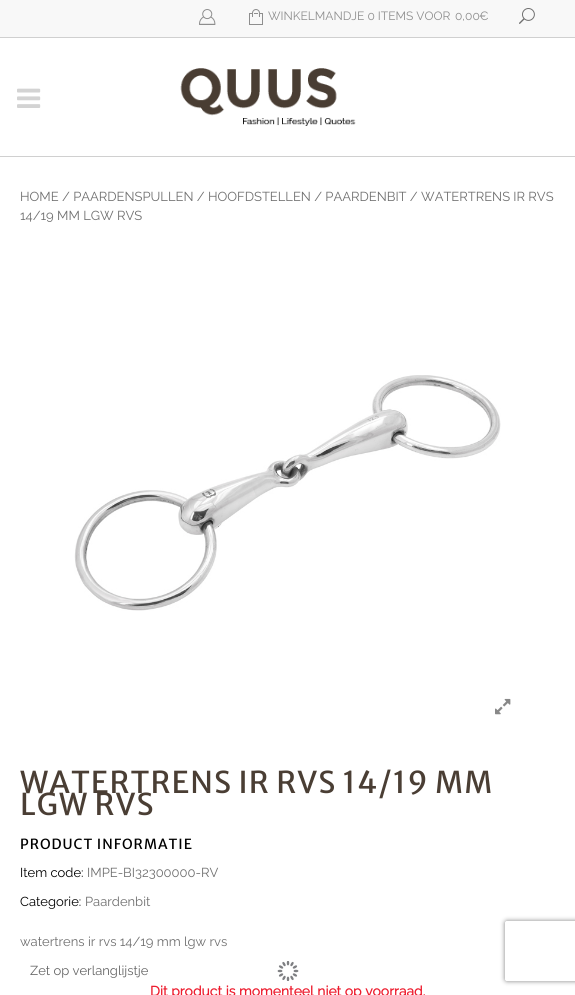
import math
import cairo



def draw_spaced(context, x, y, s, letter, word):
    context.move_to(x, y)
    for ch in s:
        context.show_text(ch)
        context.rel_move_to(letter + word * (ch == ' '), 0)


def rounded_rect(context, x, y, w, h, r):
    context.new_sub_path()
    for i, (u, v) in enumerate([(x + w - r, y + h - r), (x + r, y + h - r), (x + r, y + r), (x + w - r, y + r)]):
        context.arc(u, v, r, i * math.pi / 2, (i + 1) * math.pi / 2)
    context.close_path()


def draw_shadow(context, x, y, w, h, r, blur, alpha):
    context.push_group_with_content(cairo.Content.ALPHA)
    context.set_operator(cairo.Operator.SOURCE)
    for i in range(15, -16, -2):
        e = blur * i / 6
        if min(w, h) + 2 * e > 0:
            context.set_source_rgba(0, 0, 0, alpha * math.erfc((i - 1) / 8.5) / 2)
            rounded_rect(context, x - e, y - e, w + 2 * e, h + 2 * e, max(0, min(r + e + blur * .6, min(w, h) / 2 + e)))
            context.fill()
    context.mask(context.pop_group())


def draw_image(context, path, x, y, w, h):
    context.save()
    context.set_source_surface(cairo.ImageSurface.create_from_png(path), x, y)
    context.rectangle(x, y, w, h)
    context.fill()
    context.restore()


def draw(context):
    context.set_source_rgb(1, 1, 1)
    context.paint()
    context.set_source_rgb(248 / 255, 248 / 255, 248 / 255)
    context.rectangle(0, 0, 575, 37)
    context.fill()
    context.set_source_rgb(208 / 255, 208 / 255, 208 / 255)
    context.rectangle(0, 37, 575, 1)
    context.fill()
    draw_image(context, "images/1.png", 199, 9, 17, 16)
    draw_image(context, "images/2.png", 249, 9, 14, 16)
    draw_image(context, "images/3.png", 519, 8, 16, 16)
    context.rectangle(0, 156, 575, 1)
    context.fill()
    draw_image(context, "images/4.png", 17, 88, 24, 20)
    draw_image(context, "images/5.png", 180, 68, 176, 58)
    draw_image(context, "images/6.png", 74, 375, 427, 236)
    draw_image(context, "images/7.png", 495, 698, 16, 17)
    draw_image(context, "images/8.png", 277, 961, 22, 20)
    context.save()
    context.set_fill_rule(cairo.FillRule.EVEN_ODD)
    context.new_path()
    context.move_to(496, 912)
    context.line_to(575, 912)
    context.line_to(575, 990)
    context.line_to(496, 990)
    context.close_path()
    context.move_to(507, 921)
    context.line_to(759, 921)
    context.curve_to(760, 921, 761, 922, 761, 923)
    context.line_to(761, 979)
    context.curve_to(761, 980, 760, 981, 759, 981)
    context.line_to(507, 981)
    context.curve_to(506, 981, 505, 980, 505, 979)
    context.line_to(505, 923)
    context.curve_to(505, 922, 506, 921, 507, 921)
    context.close_path()
    context.clip()
    context.set_source_rgb(128 / 255, 128 / 255, 128 / 255)
    draw_shadow(context, 505, 921, 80, 60, 2, 2.5, 1)
    context.restore()
    context.select_font_face("Raleway Thin")
    context.set_font_size(12)
    context.set_source_rgb(142 / 255, 142 / 255, 142 / 255)
    context.move_to(268, 20)
    context.show_text("WINKELMANDJE 0 ITEMS VOOR")
    context.move_to(455, 20)
    context.show_text("0,00")
    context.move_to(479, 20)
    context.show_text("€")
    context.set_font_size(13)
    context.set_source_rgb(111 / 255, 111 / 255, 111 / 255)
    context.move_to(20, 201)
    context.show_text("HOME / PAARDENSPULLEN / HOOFDSTELLEN / PAARDENBIT / WATERTRENS IR RVS")
    context.move_to(20, 220)
    context.show_text("14/19 MM LGW RVS")
    context.select_font_face("Merriweather Sans")
    context.set_font_size(30)
    context.set_source_rgb(74 / 255, 62 / 255, 52 / 255)
    draw_spaced(context, 20, 793, "WATERTRENS IR RVS 14/19 MM", 1, 0)
    draw_spaced(context, 20, 815, "LGW RVS", 1, 0)
    context.set_font_size(13.9)
    context.set_source_rgb(0, 0, 0)
    draw_spaced(context, 20, 849, "PRODUCT INFORMATIE", 1, 0)
    context.select_font_face("Raleway Thin")
    context.set_font_size(13)
    context.move_to(20, 877)
    context.show_text("Item code:")
    context.set_source_rgb(111 / 255, 111 / 255, 111 / 255)
    context.move_to(87, 877)
    context.show_text("IMPE-BI32300000-RV")
    context.set_source_rgb(0, 0, 0)
    context.move_to(20, 906)
    context.show_text("Categorie:")
    context.set_source_rgb(111 / 255, 111 / 255, 111 / 255)
    context.move_to(85, 906)
    context.show_text("Paardenbit")
    context.move_to(20, 946)
    context.show_text("watertrens ir rvs 14/19 mm lgw rvs")
    context.set_source_rgb(102 / 255, 102 / 255, 102 / 255)
    context.move_to(30, 975)
    context.show_text("Zet op verlanglijstje")
    context.select_font_face("Raleway", cairo.FontSlant.NORMAL, cairo.FontWeight.BOLD)
    context.set_font_size(13.9)
    context.set_source_rgb(237 / 255, 28 / 255, 46 / 255)
    context.move_to(150, 996)
    context.show_text("Dit product is momenteel niet op voorraad.")


surface = cairo.ImageSurface(cairo.Format.RGB24, 575, 995)
context = cairo.Context(surface)
options = cairo.FontOptions()
options.set_hint_metrics(cairo.HintMetrics.OFF)
options.set_hint_style(cairo.HintStyle.NONE)
context.set_font_options(options)
context.set_miter_limit(4)
draw(context)
surface.write_to_png("out.png")
